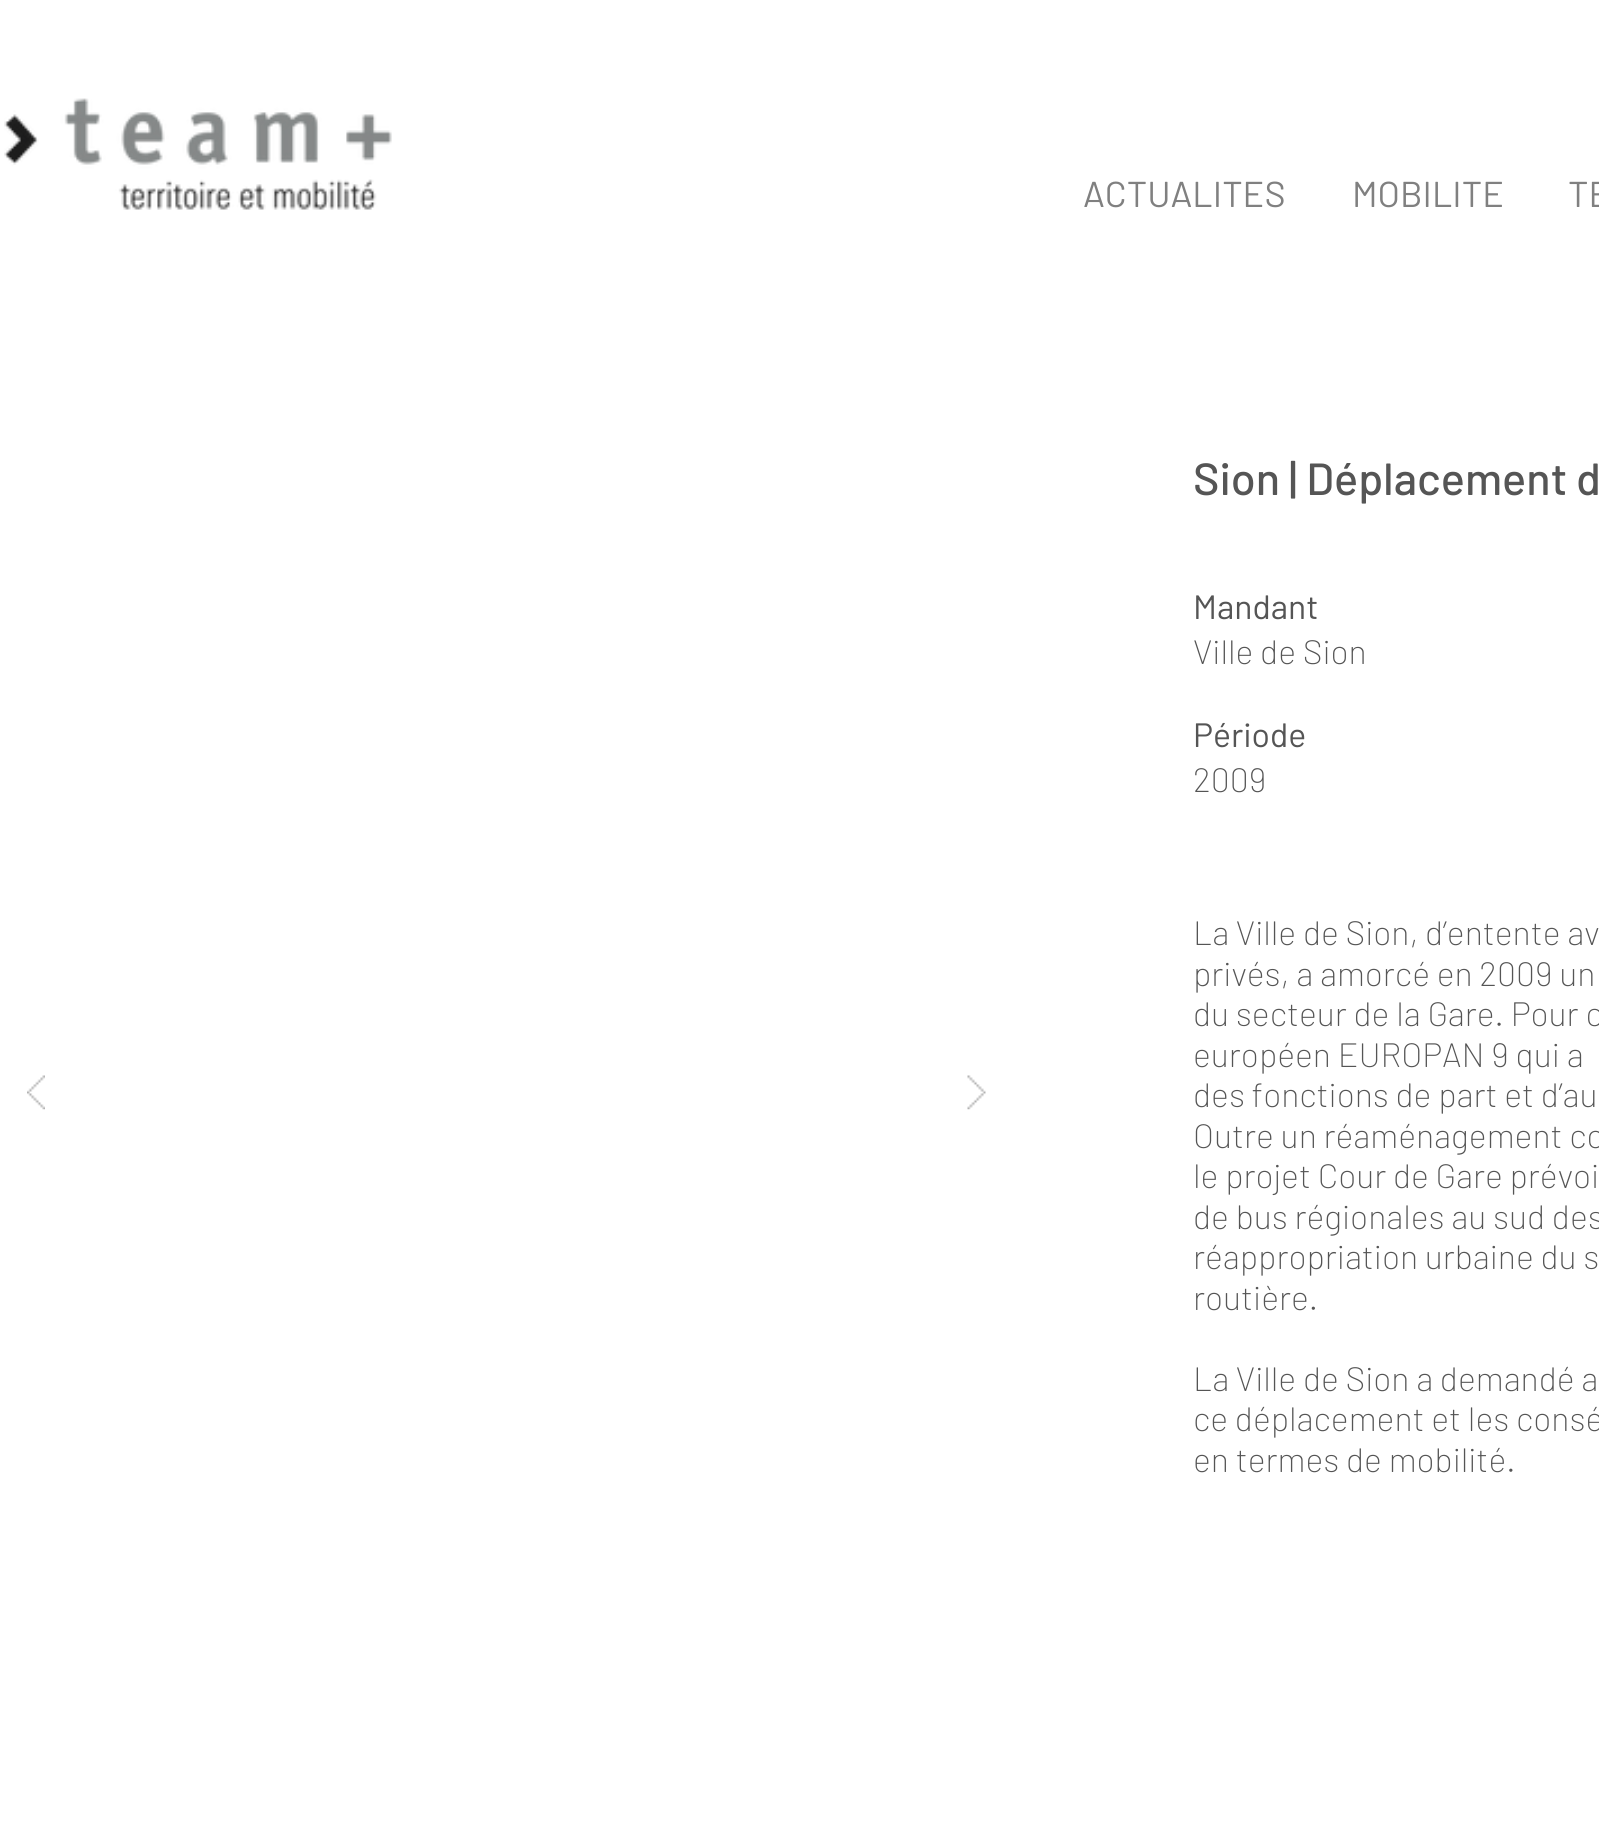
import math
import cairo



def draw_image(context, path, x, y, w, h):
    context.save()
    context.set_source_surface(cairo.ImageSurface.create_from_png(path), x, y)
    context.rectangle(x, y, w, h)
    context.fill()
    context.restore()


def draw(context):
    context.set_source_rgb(1, 1, 1)
    context.paint()
    draw_image(context, "images/1.png", 4, 98, 388, 112)
    draw_image(context, "images/2.png", 27, 1075, 18, 35)
    draw_image(context, "images/3.png", 967, 1075, 19, 35)
    context.select_font_face("Barlow")
    context.set_font_size(36)
    context.set_source_rgb(128 / 255, 128 / 255, 128 / 255)
    context.move_to(1083, 207)
    context.show_text("ACTUALITES")
    context.move_to(1352, 207)
    context.show_text("MOBILITE")
    context.move_to(1568, 207)
    context.show_text("TE")
    context.select_font_face("Barlow Medium")
    context.set_font_size(45)
    context.set_source_rgb(85 / 255, 85 / 255, 85 / 255)
    context.move_to(1193, 495)
    context.show_text("Sion | Déplacement d")
    context.select_font_face("Barlow")
    context.set_font_size(33.75)
    context.move_to(1193, 619)
    context.show_text("Mandant")
    context.select_font_face("Barlow ExtraLight")
    context.move_to(1193, 664)
    context.show_text("Ville de Sion")
    context.select_font_face("Barlow")
    context.move_to(1193, 747)
    context.show_text("Période")
    context.select_font_face("Barlow ExtraLight")
    context.move_to(1193, 792)
    context.show_text("2009")
    context.move_to(1193, 945)
    context.show_text("La Ville de Sion, d’entente av")
    context.move_to(1193, 986)
    context.show_text("privés, a amorcé en 2009 un")
    context.move_to(1193, 1026)
    context.show_text("du secteur de la Gare. Pour c")
    context.move_to(1193, 1067)
    context.show_text("européen EUROPAN 9 qui a")
    context.move_to(1193, 1107)
    context.show_text("des fonctions de part et d’au")
    context.move_to(1193, 1148)
    context.show_text("Outre un réaménagement co")
    context.move_to(1193, 1188)
    context.show_text("le projet Cour de Gare prévoi")
    context.move_to(1193, 1229)
    context.show_text("de bus régionales au sud des")
    context.move_to(1193, 1269)
    context.show_text("réappropriation urbaine du s")
    context.move_to(1193, 1310)
    context.show_text("routière.")
    context.move_to(1193, 1391)
    context.show_text("La Ville de Sion a demandé a")
    context.move_to(1193, 1431)
    context.show_text("ce déplacement et les consé")
    context.move_to(1193, 1472)
    context.show_text("en termes de mobilité.")


surface = cairo.ImageSurface(cairo.Format.RGB24, 1599, 1832)
context = cairo.Context(surface)
options = cairo.FontOptions()
options.set_hint_metrics(cairo.HintMetrics.OFF)
options.set_hint_style(cairo.HintStyle.NONE)
context.set_font_options(options)
context.set_miter_limit(4)
draw(context)
surface.write_to_png("out.png")
